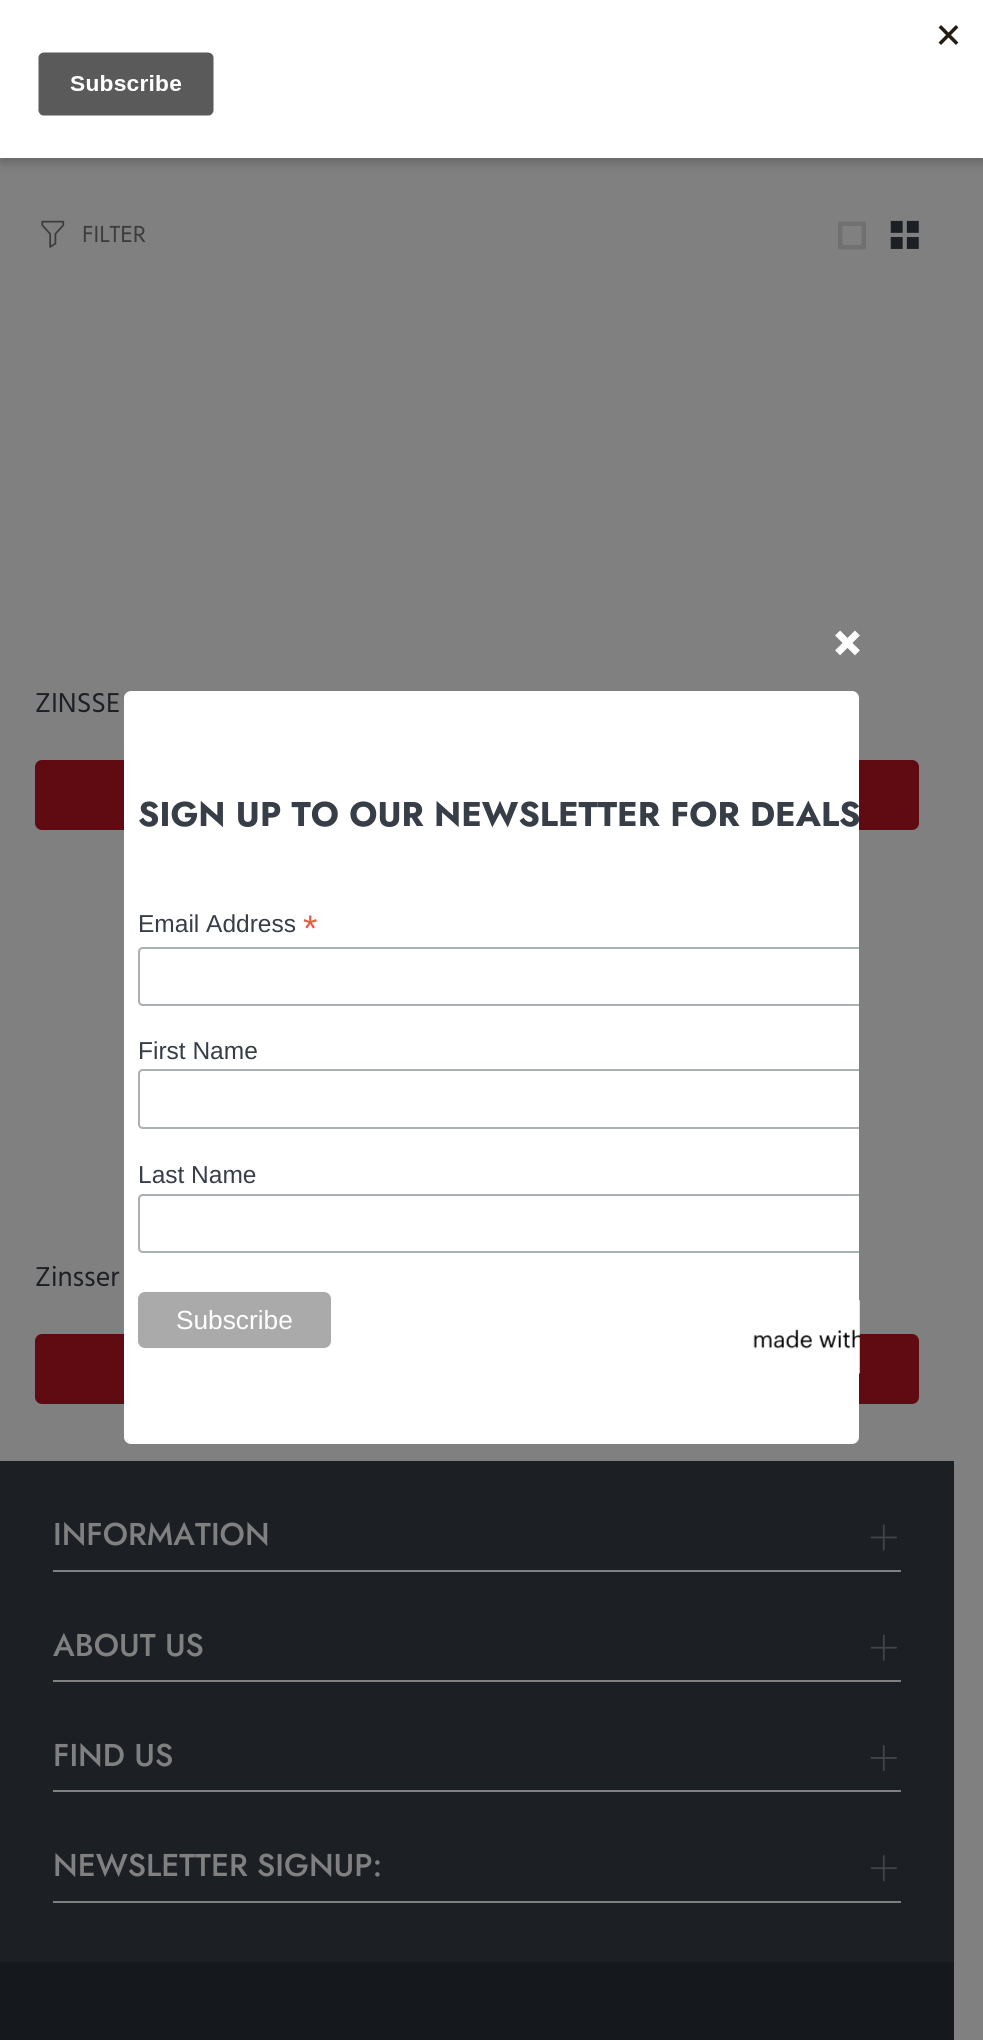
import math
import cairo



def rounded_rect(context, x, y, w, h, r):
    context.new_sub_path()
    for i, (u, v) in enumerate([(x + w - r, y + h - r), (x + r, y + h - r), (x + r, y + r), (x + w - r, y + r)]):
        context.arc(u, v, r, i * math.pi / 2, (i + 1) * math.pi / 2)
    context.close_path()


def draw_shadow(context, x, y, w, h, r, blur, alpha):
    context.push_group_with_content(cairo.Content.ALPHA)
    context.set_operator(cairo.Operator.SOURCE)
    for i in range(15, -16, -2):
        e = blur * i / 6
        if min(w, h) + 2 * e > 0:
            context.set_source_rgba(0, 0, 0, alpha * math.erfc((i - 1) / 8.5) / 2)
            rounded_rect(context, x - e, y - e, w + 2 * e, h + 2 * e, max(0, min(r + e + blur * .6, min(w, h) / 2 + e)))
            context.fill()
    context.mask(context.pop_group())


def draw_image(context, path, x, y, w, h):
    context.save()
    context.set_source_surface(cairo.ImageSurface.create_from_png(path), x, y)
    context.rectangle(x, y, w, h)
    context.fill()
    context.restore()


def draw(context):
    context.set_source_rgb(128 / 255, 128 / 255, 128 / 255)
    context.paint()
    context.set_source_rgb(0, 0, 0)
    draw_shadow(context, 0, 5, 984, 158, 0, 5, 0.2)
    context.set_source_rgb(1, 1, 1)
    context.rectangle(0, 0, 983, 158)
    context.fill()
    draw_image(context, "images/1.png", 38, 25, 921, 91)
    draw_image(context, "images/2.png", 41, 220, 24, 28)
    context.set_source_rgb(113 / 255, 113 / 255, 114 / 255)
    context.new_path()
    context.move_to(838, 249.5)
    context.line_to(838, 221.5)
    context.line_to(866, 221.5)
    context.line_to(866, 249.5)
    context.close_path()
    context.move_to(842.5, 245)
    context.line_to(861.5, 245)
    context.line_to(861.5, 226)
    context.line_to(842.5, 226)
    context.close_path()
    context.fill()
    draw_image(context, "images/3.png", 890, 220, 29, 29)
    context.set_source_rgb(95 / 255, 11 / 255, 17 / 255)
    rounded_rect(context, 35, 760, 425, 70, 7)
    context.fill()
    rounded_rect(context, 495, 760, 424, 70, 7)
    context.fill()
    rounded_rect(context, 35, 1334, 425, 70, 7)
    context.fill()
    rounded_rect(context, 495, 1334, 424, 70, 7)
    context.fill()
    draw_image(context, "images/4.png", 835, 630, 25, 26)
    context.set_source_rgb(1, 1, 1)
    rounded_rect(context, 124, 691, 735, 753, 7)
    context.fill()
    context.set_source_rgb(171 / 255, 176 / 255, 178 / 255)
    context.new_path()
    context.move_to(143, 947)
    context.curve_to(140, 947, 138, 949, 138, 952)
    context.line_to(138, 1001)
    context.curve_to(138, 1004, 140, 1006, 143, 1006)
    context.line_to(859, 1006)
    context.line_to(859, 1004)
    context.line_to(143, 1004)
    context.curve_to(141, 1004, 140, 1003, 140, 1001)
    context.line_to(140, 952)
    context.curve_to(140, 950, 141, 949, 143, 949)
    context.line_to(859, 949)
    context.line_to(859, 947)
    context.close_path()
    context.fill()
    context.new_path()
    context.move_to(143, 1069)
    context.curve_to(140, 1069, 138, 1071, 138, 1074)
    context.line_to(138, 1124)
    context.curve_to(138, 1127, 140, 1129, 143, 1129)
    context.line_to(859, 1129)
    context.line_to(859, 1127)
    context.line_to(143, 1127)
    context.curve_to(141, 1127, 140, 1126, 140, 1124)
    context.line_to(140, 1074)
    context.curve_to(140, 1072, 141, 1071, 143, 1071)
    context.line_to(859, 1071)
    context.line_to(859, 1069)
    context.close_path()
    context.fill()
    context.new_path()
    context.move_to(143, 1194)
    context.curve_to(140, 1194, 138, 1196, 138, 1199)
    context.line_to(138, 1248)
    context.curve_to(138, 1251, 140, 1253, 143, 1253)
    context.line_to(859, 1253)
    context.line_to(859, 1251)
    context.line_to(143, 1251)
    context.curve_to(141, 1251, 140, 1250, 140, 1248)
    context.line_to(140, 1199)
    context.curve_to(140, 1197, 141, 1196, 143, 1196)
    context.line_to(859, 1196)
    context.line_to(859, 1194)
    context.close_path()
    context.fill()
    context.set_source_rgb(170 / 255, 170 / 255, 170 / 255)
    rounded_rect(context, 138, 1292, 193, 56, 7)
    context.fill()
    draw_image(context, "images/5.png", 753, 1300, 107, 75)
    context.set_source_rgb(28 / 255, 31 / 255, 36 / 255)
    context.rectangle(0, 1461, 954, 501)
    context.fill()
    context.set_source_rgb(128 / 255, 128 / 255, 128 / 255)
    context.rectangle(53, 1570, 848, 2)
    context.fill()
    draw_image(context, "images/6.png", 870, 1524, 27, 27)
    context.rectangle(53, 1680, 848, 2)
    context.fill()
    draw_image(context, "images/7.png", 870, 1634, 27, 27)
    context.rectangle(53, 1790, 848, 2)
    context.fill()
    draw_image(context, "images/8.png", 870, 1744, 27, 27)
    context.rectangle(53, 1901, 848, 2)
    context.fill()
    draw_image(context, "images/9.png", 870, 1855, 27, 27)
    context.set_source_rgb(21 / 255, 25 / 255, 29 / 255)
    context.rectangle(0, 1962, 954, 78)
    context.fill()
    context.select_font_face("Jost")
    context.set_font_size(23)
    context.set_source_rgb(60 / 255, 60 / 255, 60 / 255)
    context.move_to(82, 242)
    context.show_text("FILTER")
    context.select_font_face("Hind")
    context.set_font_size(28)
    context.set_source_rgb(28 / 255, 31 / 255, 36 / 255)
    context.move_to(35, 712)
    context.show_text("ZINSSE")
    context.move_to(35, 1286)
    context.show_text("Zinsser")
    context.select_font_face("Jost", cairo.FontSlant.NORMAL, cairo.FontWeight.BOLD)
    context.set_font_size(34.3)
    context.set_source_rgb(55 / 255, 62 / 255, 72 / 255)
    context.move_to(138, 826)
    context.show_text("SIGN UP TO OUR NEWSLETTER FOR DEALS")
    context.select_font_face("Liberation Sans")
    context.set_font_size(24.5)
    context.move_to(138, 932)
    context.show_text("Email Address")
    context.set_font_size(37)
    context.set_source_rgb(232 / 255, 92 / 255, 65 / 255)
    context.move_to(303, 941)
    context.show_text("*")
    context.set_font_size(24.5)
    context.set_source_rgb(55 / 255, 62 / 255, 72 / 255)
    context.move_to(138, 1059)
    context.show_text("First Name")
    context.move_to(138, 1183)
    context.show_text("Last Name")
    context.set_font_size(26.25)
    context.set_source_rgb(1, 1, 1)
    context.move_to(176, 1329)
    context.show_text("Subscribe")
    context.select_font_face("Jost Medium")
    context.set_font_size(31.5)
    context.set_source_rgb(128 / 255, 128 / 255, 128 / 255)
    context.move_to(53, 1545)
    context.show_text("INFORMATION")
    context.move_to(53, 1656)
    context.show_text("ABOUT US")
    context.move_to(53, 1766)
    context.show_text("FIND US")
    context.move_to(53, 1876)
    context.show_text("NEWSLETTER SIGNUP:")


surface = cairo.ImageSurface(cairo.Format.RGB24, 983, 2040)
context = cairo.Context(surface)
options = cairo.FontOptions()
options.set_hint_metrics(cairo.HintMetrics.OFF)
options.set_hint_style(cairo.HintStyle.NONE)
context.set_font_options(options)
context.set_miter_limit(4)
draw(context)
surface.write_to_png("out.png")
